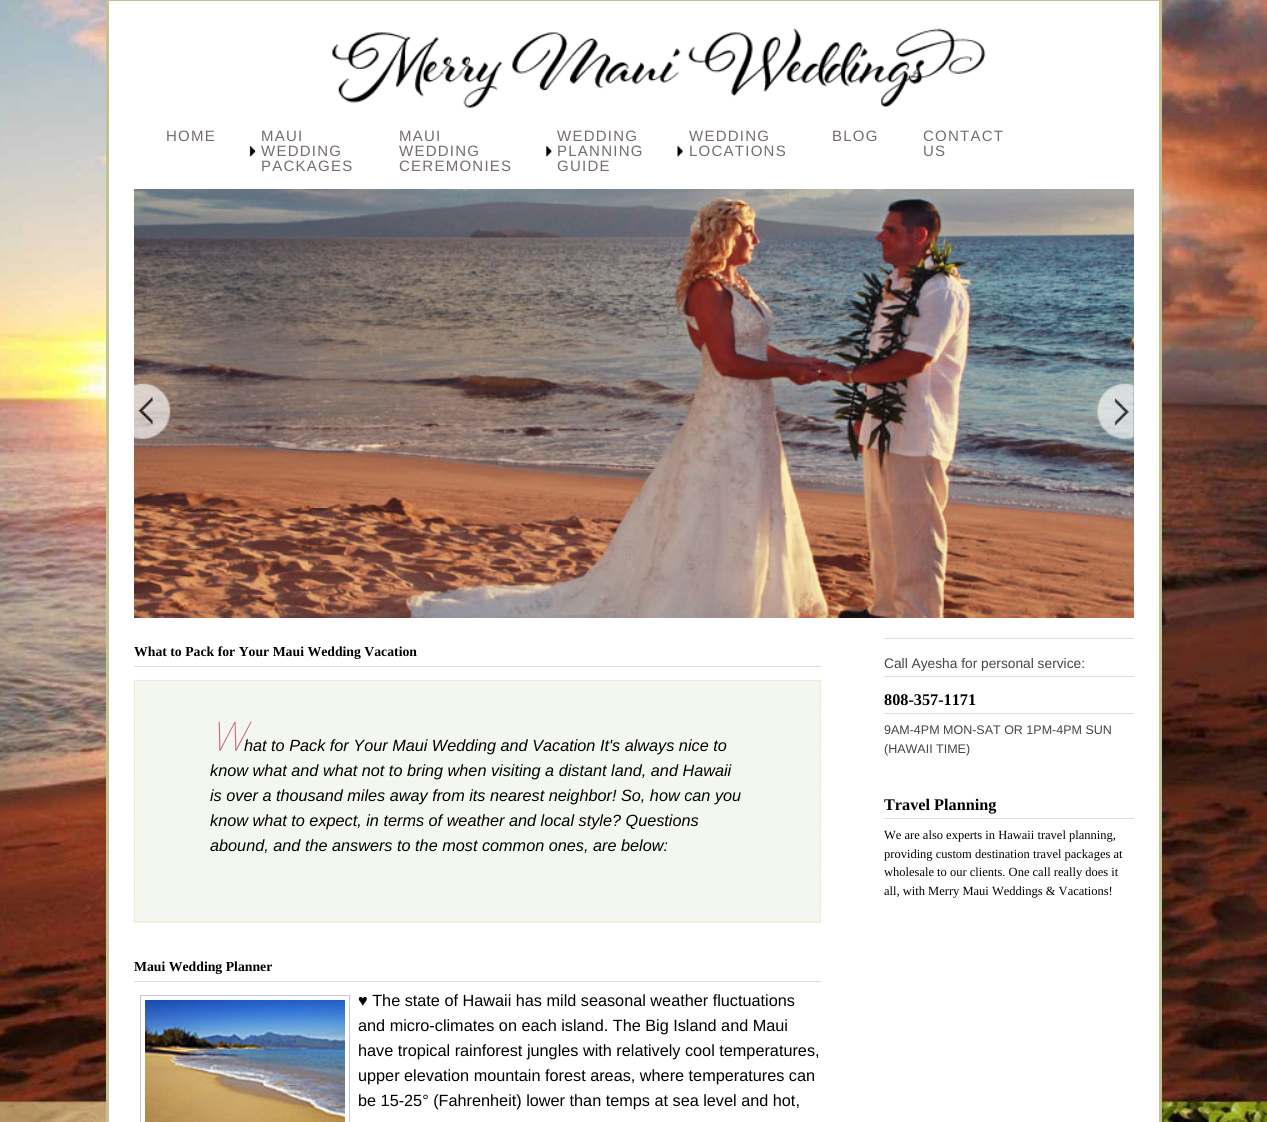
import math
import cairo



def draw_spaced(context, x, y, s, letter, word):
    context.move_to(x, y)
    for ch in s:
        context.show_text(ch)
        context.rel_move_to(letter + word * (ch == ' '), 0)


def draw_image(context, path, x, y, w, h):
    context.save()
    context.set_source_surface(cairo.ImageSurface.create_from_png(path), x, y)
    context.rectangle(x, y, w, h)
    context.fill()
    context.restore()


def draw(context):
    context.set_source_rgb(1, 1, 1)
    context.paint()
    draw_image(context, "images/1.png", 0, 0, 1267, 1122)
    context.set_source_rgb(1, 1, 1)
    context.rectangle(109, 1, 1050, 1121)
    context.fill()
    context.set_source_rgb(194 / 255, 194 / 255, 149 / 255)
    context.rectangle(106, 0, 1055, 1)
    context.fill()
    context.rectangle(1159, 0, 3, 1122)
    context.fill()
    context.rectangle(106, 0, 3, 1122)
    context.fill()
    draw_image(context, "images/2.png", 332, 28, 654, 80)
    draw_image(context, "images/3.png", 249, 146, 7, 11)
    draw_image(context, "images/4.png", 546, 146, 6, 11)
    draw_image(context, "images/5.png", 677, 146, 6, 11)
    draw_image(context, "images/6.png", 134, 189, 1000, 429)
    draw_image(context, "images/7.png", 134, 383, 37, 56)
    draw_image(context, "images/8.png", 1097, 383, 37, 56)
    context.set_source_rgb(221 / 255, 221 / 255, 221 / 255)
    context.rectangle(134, 666, 687, 1)
    context.fill()
    context.set_source_rgb(244 / 255, 247 / 255, 240 / 255)
    context.rectangle(134, 680, 687, 243)
    context.fill()
    context.new_path()
    context.move_to(134, 680.5)
    context.line_to(821, 680.5)
    context.set_source_rgb(235 / 255, 226 / 255, 183 / 255)
    context.set_line_width(1.2)
    context.set_dash([1.25, 1.25])
    context.stroke()
    context.new_path()
    context.move_to(820.5, 680)
    context.line_to(820.5, 922.5)
    context.stroke()
    context.new_path()
    context.move_to(134, 922)
    context.line_to(821, 922)
    context.stroke()
    context.new_path()
    context.move_to(134.5, 680)
    context.line_to(134.5, 922.5)
    context.stroke()
    context.set_source_rgb(221 / 255, 221 / 255, 221 / 255)
    context.rectangle(134, 981, 687, 1)
    context.fill()
    context.rectangle(140.5, 995.5, 209, 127)
    context.set_source_rgb(191 / 255, 202 / 255, 213 / 255)
    context.set_line_width(1)
    context.set_dash([])
    context.stroke()
    draw_image(context, "images/9.png", 145, 1000, 200, 122)
    context.set_source_rgb(221 / 255, 221 / 255, 221 / 255)
    context.rectangle(884, 638, 250, 1)
    context.fill()
    context.rectangle(884, 676, 250, 1)
    context.fill()
    context.rectangle(884, 713, 250, 1)
    context.fill()
    context.rectangle(884, 818, 250, 1)
    context.fill()
    context.select_font_face("Liberation Sans")
    context.set_font_size(15)
    context.set_source_rgb(117 / 255, 108 / 255, 108 / 255)
    draw_spaced(context, 166, 141, "HOME", 1.25, 0)
    draw_spaced(context, 261, 141, "MAUI", 1.25, 0)
    draw_spaced(context, 261, 156, "WEDDING", 1.25, 0)
    draw_spaced(context, 261, 171, "PACKAGES", 1.25, 0)
    draw_spaced(context, 399, 141, "MAUI", 1.25, 0)
    draw_spaced(context, 399, 156, "WEDDING", 1.25, 0)
    draw_spaced(context, 399, 171, "CEREMONIES", 1.25, 0)
    draw_spaced(context, 557, 141, "WEDDING", 1.25, 0)
    draw_spaced(context, 557, 156, "PLANNING", 1.25, 0)
    draw_spaced(context, 557, 171, "GUIDE", 1.25, 0)
    draw_spaced(context, 689, 141, "WEDDING", 1.25, 0)
    draw_spaced(context, 689, 156, "LOCATIONS", 1.25, 0)
    draw_spaced(context, 832, 141, "BLOG", 1.25, 0)
    draw_spaced(context, 923, 141, "CONTACT", 1.25, 0)
    draw_spaced(context, 923, 156, "US", 1.25, 0)
    context.select_font_face("Liberation Serif", cairo.FontSlant.NORMAL, cairo.FontWeight.BOLD)
    context.set_font_size(13.75)
    context.set_source_rgb(0, 0, 0)
    context.move_to(134, 656)
    context.show_text("What to Pack for Your Maui Wedding Vacation")
    context.select_font_face("Noto Sans Thin", cairo.FontSlant.ITALIC)
    context.set_font_size(41)
    context.set_source_rgb(205 / 255, 95 / 255, 133 / 255)
    context.move_to(210, 751)
    context.show_text("W")
    context.select_font_face("Liberation Sans", cairo.FontSlant.ITALIC)
    context.set_font_size(16.25)
    context.set_source_rgb(0, 0, 0)
    context.move_to(244, 751)
    context.show_text("hat to Pack for Your Maui Wedding and Vacation It's always nice to")
    context.move_to(210, 776)
    context.show_text("know what and what not to bring when visiting a distant land, and Hawaii")
    context.move_to(210, 801)
    context.show_text("is over a thousand miles away from its nearest neighbor! So, how can you")
    context.move_to(210, 826)
    context.show_text("know what to expect, in terms of weather and local style? Questions")
    context.move_to(210, 851)
    context.show_text("abound, and the answers to the most common ones, are below:")
    context.select_font_face("Liberation Serif", cairo.FontSlant.NORMAL, cairo.FontWeight.BOLD)
    context.set_font_size(13.75)
    context.move_to(134, 971)
    context.show_text("Maui Wedding Planner")
    context.select_font_face("Liberation Sans")
    context.set_font_size(16.25)
    context.move_to(358, 1006)
    context.show_text("♥ The state of Hawaii has mild seasonal weather fluctuations")
    context.move_to(358, 1031)
    context.show_text("and micro-climates on each island. The Big Island and Maui")
    context.move_to(358, 1056)
    context.show_text("have tropical rainforest jungles with relatively cool temperatures,")
    context.move_to(358, 1081)
    context.show_text("upper elevation mountain forest areas, where temperatures can")
    context.move_to(358, 1106)
    context.show_text("be 15-25° (Fahrenheit) lower than temps at sea level and hot,")
    context.set_font_size(13.75)
    context.set_source_rgb(68 / 255, 68 / 255, 68 / 255)
    context.move_to(884, 668)
    context.show_text("Call Ayesha for personal service:")
    context.select_font_face("Liberation Serif", cairo.FontSlant.NORMAL, cairo.FontWeight.BOLD)
    context.set_font_size(16.25)
    context.set_source_rgb(0, 0, 0)
    context.move_to(884, 705)
    context.show_text("808-357-1171")
    context.select_font_face("Liberation Sans")
    context.set_font_size(12.5)
    context.set_source_rgb(68 / 255, 68 / 255, 68 / 255)
    context.move_to(884, 734)
    context.show_text("9AM-4PM MON-SAT OR 1PM-4PM SUN")
    context.move_to(884, 753)
    context.show_text("(HAWAII TIME)")
    context.select_font_face("Liberation Serif", cairo.FontSlant.NORMAL, cairo.FontWeight.BOLD)
    context.set_font_size(16.25)
    context.set_source_rgb(0, 0, 0)
    context.move_to(884, 810)
    context.show_text("Travel Planning")
    context.select_font_face("Liberation Serif")
    context.set_font_size(12.5)
    context.move_to(884, 839)
    context.show_text("We are also experts in Hawaii travel planning,")
    context.move_to(884, 858)
    context.show_text("providing custom destination travel packages at")
    context.move_to(884, 876)
    context.show_text("wholesale to our clients. One call really does it")
    context.move_to(884, 895)
    context.show_text("all, with Merry Maui Weddings & Vacations!")


surface = cairo.ImageSurface(cairo.Format.RGB24, 1267, 1122)
context = cairo.Context(surface)
options = cairo.FontOptions()
options.set_hint_metrics(cairo.HintMetrics.OFF)
options.set_hint_style(cairo.HintStyle.NONE)
context.set_font_options(options)
context.set_miter_limit(4)
draw(context)
surface.write_to_png("out.png")
